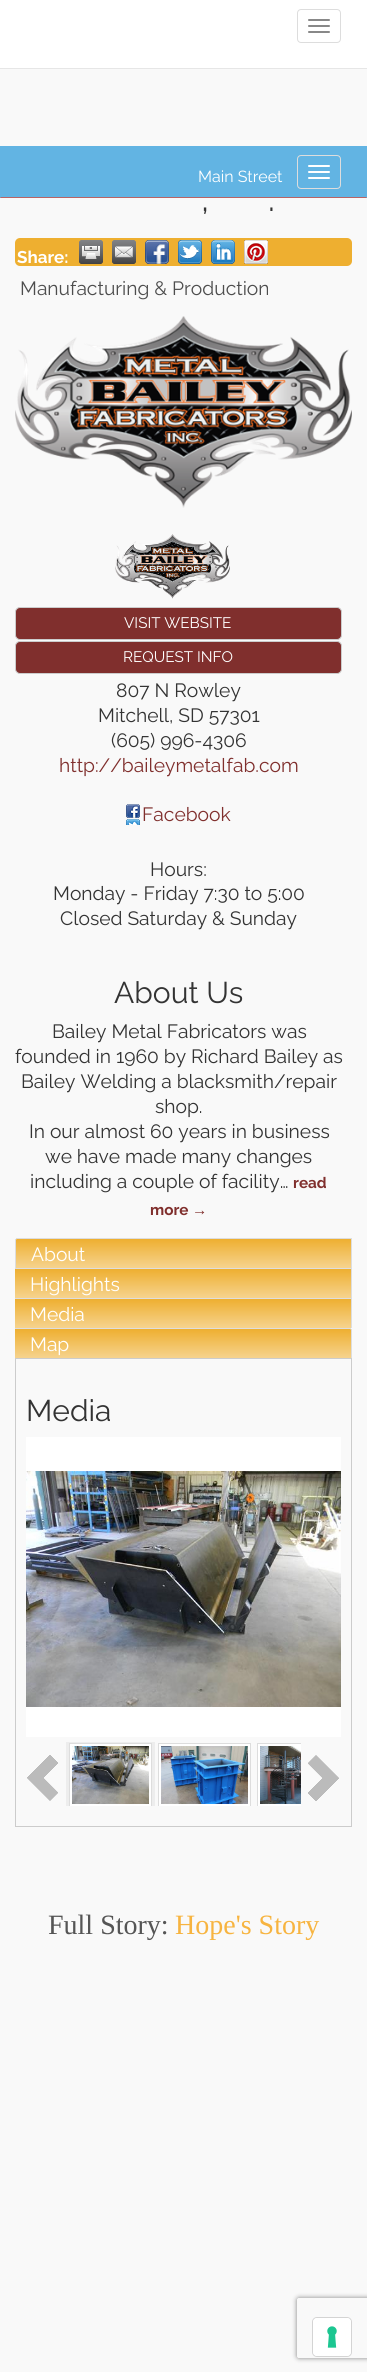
import math
import cairo



def rounded_rect(context, x, y, w, h, r):
    context.new_sub_path()
    for i, (u, v) in enumerate([(x + w - r, y + h - r), (x + r, y + h - r), (x + r, y + r), (x + w - r, y + r)]):
        context.arc(u, v, r, i * math.pi / 2, (i + 1) * math.pi / 2)
    context.close_path()


def draw_shadow(context, x, y, w, h, r, blur, alpha):
    context.push_group_with_content(cairo.Content.ALPHA)
    context.set_operator(cairo.Operator.SOURCE)
    for i in range(15, -16, -2):
        e = blur * i / 6
        if min(w, h) + 2 * e > 0:
            context.set_source_rgba(0, 0, 0, alpha * math.erfc((i - 1) / 8.5) / 2)
            rounded_rect(context, x - e, y - e, w + 2 * e, h + 2 * e, max(0, min(r + e + blur * .6, min(w, h) / 2 + e)))
            context.fill()
    context.mask(context.pop_group())


def draw_image(context, path, x, y, w, h):
    context.save()
    context.set_source_surface(cairo.ImageSurface.create_from_png(path), x, y)
    context.rectangle(x, y, w, h)
    context.fill()
    context.restore()


def draw(context):
    context.set_source_rgb(249 / 255, 249 / 255, 249 / 255)
    context.paint()
    context.set_source_rgb(1, 1, 1)
    context.rectangle(0, 0, 367, 68)
    context.fill()
    context.set_source_rgb(230 / 255, 230 / 255, 230 / 255)
    context.rectangle(0, 68, 367, 1)
    context.fill()
    rounded_rect(context, 297.5, 9.5, 43, 33, 3.5)
    context.set_source_rgb(221 / 255, 221 / 255, 221 / 255)
    context.set_line_width(1)
    context.stroke()
    context.set_source_rgb(136 / 255, 136 / 255, 136 / 255)
    rounded_rect(context, 308, 19, 22, 2, 1)
    context.fill()
    rounded_rect(context, 308, 25, 22, 2, 1)
    context.fill()
    rounded_rect(context, 308, 31, 22, 2, 1)
    context.fill()
    context.set_source_rgb(98 / 255, 180 / 255, 227 / 255)
    context.rectangle(0, 146, 367, 52)
    context.fill()
    context.set_source_rgb(186 / 255, 100 / 255, 100 / 255)
    context.new_path()
    context.move_to(367, 198)
    context.line_to(0, 198)
    context.line_to(1, 197)
    context.line_to(366, 197)
    context.close_path()
    context.fill()
    rounded_rect(context, 297.5, 155.5, 43, 33, 3.5)
    context.set_source_rgb(221 / 255, 221 / 255, 221 / 255)
    context.stroke()
    context.set_source_rgb(1, 1, 1)
    rounded_rect(context, 308, 165, 22, 2, 1)
    context.fill()
    rounded_rect(context, 308, 171, 22, 2, 1)
    context.fill()
    rounded_rect(context, 308, 177, 22, 2, 1)
    context.fill()
    context.set_source_rgb(238 / 255, 175 / 255, 48 / 255)
    rounded_rect(context, 15, 238, 337, 28, 5)
    context.fill()
    draw_image(context, "images/1.png", 79, 240, 24, 24)
    draw_image(context, "images/2.png", 112, 240, 24, 24)
    draw_image(context, "images/3.png", 145, 240, 24, 24)
    draw_image(context, "images/4.png", 178, 240, 24, 24)
    draw_image(context, "images/5.png", 211, 240, 24, 24)
    draw_image(context, "images/6.png", 244, 240, 24, 24)
    draw_image(context, "images/7.png", 15, 316, 337, 192)
    draw_image(context, "images/8.png", 115, 534, 115, 65)
    context.set_source_rgb(128 / 255, 47 / 255, 45 / 255)
    rounded_rect(context, 15.5, 607.5, 326, 32, 4.5)
    context.fill_preserve()
    context.set_source_rgb(204 / 255, 204 / 255, 204 / 255)
    context.stroke()
    context.set_source_rgb(128 / 255, 47 / 255, 45 / 255)
    rounded_rect(context, 15.5, 641.5, 326, 32, 4.5)
    context.fill_preserve()
    context.set_source_rgb(204 / 255, 204 / 255, 204 / 255)
    context.stroke()
    draw_image(context, "images/9.png", 126, 804, 14, 21)
    gradient = cairo.LinearGradient(184, 1239, 184, 1268)
    gradient.add_color_stop_rgba(0, 238 / 255, 175 / 255, 48 / 255, 1)
    gradient.add_color_stop_rgba(1, 246 / 255, 211 / 255, 142 / 255, 1)
    context.set_source(gradient)
    context.new_path()
    context.move_to(17, 1239)
    context.line_to(351, 1239)
    context.line_to(351, 1268)
    context.line_to(16, 1268)
    context.line_to(16, 1240)
    context.curve_to(16, 1239.5, 16.5, 1239, 17, 1239)
    context.close_path()
    context.fill()
    context.set_source_rgb(221 / 255, 221 / 255, 221 / 255)
    context.rectangle(16, 1238, 336, 1)
    context.fill()
    context.rectangle(351, 1238, 1, 30)
    context.fill()
    context.rectangle(15, 1239, 1, 29)
    context.fill()
    gradient = cairo.LinearGradient(183, 1269, 183, 1298)
    gradient.add_color_stop_rgba(0, 238 / 255, 175 / 255, 48 / 255, 1)
    gradient.add_color_stop_rgba(1, 246 / 255, 211 / 255, 142 / 255, 1)
    context.set_source(gradient)
    context.rectangle(15, 1269, 336, 29)
    context.fill()
    context.set_source_rgb(221 / 255, 221 / 255, 221 / 255)
    context.rectangle(15, 1268, 337, 1)
    context.fill()
    context.rectangle(351, 1268, 1, 30)
    context.fill()
    gradient = cairo.LinearGradient(183, 1299, 183, 1328)
    gradient.add_color_stop_rgba(0, 238 / 255, 175 / 255, 48 / 255, 1)
    gradient.add_color_stop_rgba(1, 246 / 255, 211 / 255, 142 / 255, 1)
    context.set_source(gradient)
    context.rectangle(15, 1299, 336, 29)
    context.fill()
    context.set_source_rgb(221 / 255, 221 / 255, 221 / 255)
    context.rectangle(15, 1298, 337, 1)
    context.fill()
    context.rectangle(351, 1298, 1, 30)
    context.fill()
    gradient = cairo.LinearGradient(183, 1329, 183, 1358)
    gradient.add_color_stop_rgba(0, 238 / 255, 175 / 255, 48 / 255, 1)
    gradient.add_color_stop_rgba(1, 246 / 255, 211 / 255, 142 / 255, 1)
    context.set_source(gradient)
    context.new_path()
    context.move_to(15, 1329)
    context.line_to(350, 1329)
    context.curve_to(350.5, 1329, 351, 1329.5, 351, 1330)
    context.line_to(351, 1358)
    context.line_to(15, 1358)
    context.close_path()
    context.fill()
    context.set_source_rgb(221 / 255, 221 / 255, 221 / 255)
    context.rectangle(15, 1328, 336, 1)
    context.fill()
    context.rectangle(351, 1329, 1, 29)
    context.fill()
    context.rectangle(15.5, 1358.5, 336, 468)
    context.set_source_rgb(204 / 255, 204 / 255, 204 / 255)
    context.stroke()
    context.set_source_rgb(1, 1, 1)
    context.rectangle(26, 1437, 315, 300)
    context.fill()
    draw_image(context, "images/10.png", 26, 1471, 315, 236)
    draw_image(context, "images/11.png", 27, 1755, 31, 46)
    context.set_source_rgb(237 / 255, 237 / 255, 237 / 255)
    context.rectangle(66, 1742, 89, 64)
    context.fill()
    context.set_source_rgb(1, 1, 1)
    context.rectangle(70, 1744, 81, 62)
    context.fill()
    context.save()
    context.rectangle(66, 1742, 89, 64)
    context.clip()
    context.rectangle(69.5, 1743.5, 82, 63)
    context.set_source_rgb(221 / 255, 221 / 255, 221 / 255)
    context.stroke()
    context.restore()
    draw_image(context, "images/12.png", 72, 1746, 77, 58)
    context.rectangle(159, 1744, 91, 62)
    context.fill()
    context.save()
    context.rectangle(155, 1742, 99, 64)
    context.clip()
    context.rectangle(158.5, 1743.5, 92, 63)
    context.set_source_rgb(221 / 255, 221 / 255, 221 / 255)
    context.stroke()
    context.restore()
    draw_image(context, "images/13.png", 161, 1746, 87, 58)
    context.rectangle(258, 1744, 43, 62)
    context.fill()
    context.save()
    context.rectangle(254, 1742, 47, 64)
    context.clip()
    context.rectangle(257.5, 1743.5, 83, 63)
    context.set_source_rgb(221 / 255, 221 / 255, 221 / 255)
    context.stroke()
    context.restore()
    draw_image(context, "images/14.png", 260, 1746, 41, 58)
    draw_image(context, "images/15.png", 308, 1755, 31, 46)
    context.save()
    context.set_fill_rule(cairo.FillRule.EVEN_ODD)
    context.new_path()
    context.move_to(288, 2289)
    context.line_to(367, 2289)
    context.line_to(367, 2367)
    context.line_to(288, 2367)
    context.close_path()
    context.move_to(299, 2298)
    context.line_to(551, 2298)
    context.curve_to(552, 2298, 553, 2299, 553, 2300)
    context.line_to(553, 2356)
    context.curve_to(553, 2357, 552, 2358, 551, 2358)
    context.line_to(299, 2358)
    context.curve_to(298, 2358, 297, 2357, 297, 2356)
    context.line_to(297, 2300)
    context.curve_to(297, 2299, 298, 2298, 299, 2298)
    context.close_path()
    context.clip()
    context.set_source_rgb(128 / 255, 128 / 255, 128 / 255)
    draw_shadow(context, 297, 2298, 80, 60, 2, 2.5, 1)
    context.restore()
    rounded_rect(context, 312.5, 2317.5, 39, 39, 4.5)
    context.set_source_rgb(212 / 255, 212 / 255, 212 / 255)
    context.stroke()
    context.set_source_rgb(1, 1, 1)
    rounded_rect(context, 313, 2318, 38, 38, 4)
    context.fill()
    draw_image(context, "images/16.png", 327, 2326, 10, 22)
    context.select_font_face("Raleway")
    context.set_font_size(16)
    context.move_to(198, 182)
    context.show_text("Main Street")
    context.set_font_size(36)
    context.set_source_rgb(51 / 255, 51 / 255, 51 / 255)
    context.move_to(201, 211)
    context.show_text(",")
    context.move_to(268, 211)
    context.show_text(".")
    context.select_font_face("Raleway", cairo.FontSlant.NORMAL, cairo.FontWeight.BOLD)
    context.set_font_size(17)
    context.set_source_rgb(1, 1, 1)
    context.move_to(17, 263)
    context.show_text("Share:")
    context.select_font_face("Raleway")
    context.set_font_size(19.25)
    context.set_source_rgb(77 / 255, 77 / 255, 77 / 255)
    context.move_to(20, 295)
    context.show_text("Manufacturing & Production")
    context.set_font_size(15.25)
    context.set_source_rgb(1, 1, 1)
    context.move_to(124, 628)
    context.show_text("VISIT WEBSITE")
    context.move_to(123, 662)
    context.show_text("REQUEST INFO")
    context.set_font_size(19.25)
    context.set_source_rgb(51 / 255, 51 / 255, 51 / 255)
    context.move_to(116, 697)
    context.show_text("807 N Rowley")
    context.move_to(98, 722)
    context.show_text("Mitchell, SD 57301")
    context.move_to(111, 747)
    context.show_text("(605) 996-4306")
    context.set_source_rgb(128 / 255, 47 / 255, 45 / 255)
    context.move_to(59, 772)
    context.show_text("http://baileymetalfab.com")
    context.move_to(142, 821)
    context.show_text("Facebook")
    context.set_source_rgb(51 / 255, 51 / 255, 51 / 255)
    context.move_to(150, 876)
    context.show_text("Hours:")
    context.move_to(53, 900)
    context.show_text("Monday - Friday 7:30 to 5:00")
    context.move_to(60, 925)
    context.show_text("Closed Saturday & Sunday")
    context.set_font_size(30)
    context.move_to(114, 1003)
    context.show_text("About Us")
    context.set_font_size(19.25)
    context.move_to(52, 1038)
    context.show_text("Bailey Metal Fabricators was")
    context.move_to(15, 1063)
    context.show_text("founded in 1960 by Richard Bailey as")
    context.move_to(21, 1088)
    context.show_text("Bailey Welding a blacksmith/repair")
    context.move_to(155, 1113)
    context.show_text("shop.")
    context.move_to(29, 1138)
    context.show_text("In our almost 60 years in business")
    context.move_to(45, 1163)
    context.show_text("we have made many changes")
    context.move_to(30, 1188)
    context.show_text("including a couple of facility…")
    context.select_font_face("Raleway", cairo.FontSlant.NORMAL, cairo.FontWeight.BOLD)
    context.set_font_size(15.25)
    context.set_source_rgb(128 / 255, 47 / 255, 45 / 255)
    context.move_to(293, 1188)
    context.show_text("read")
    context.move_to(150, 1215)
    context.show_text("more")
    context.select_font_face("Liberation Sans", cairo.FontSlant.NORMAL, cairo.FontWeight.BOLD)
    context.move_to(192, 1215)
    context.show_text("→")
    context.select_font_face("Raleway")
    context.set_font_size(19.25)
    context.set_source_rgb(1, 1, 1)
    context.move_to(31, 1261)
    context.show_text("About")
    context.move_to(30, 1291)
    context.show_text("Highlights")
    context.move_to(30, 1321)
    context.show_text("Media")
    context.move_to(30, 1351)
    context.show_text("Map")
    context.set_font_size(30)
    context.set_source_rgb(51 / 255, 51 / 255, 51 / 255)
    context.move_to(26, 1421)
    context.show_text("Media")
    context.select_font_face("Liberation Serif")
    context.set_font_size(28)
    context.set_source_rgb(85 / 255, 85 / 255, 85 / 255)
    context.move_to(48, 1934)
    context.show_text("Full Story:")
    context.set_source_rgb(247 / 255, 180 / 255, 64 / 255)
    context.move_to(175, 1934)
    context.show_text("Hope's Story")


surface = cairo.ImageSurface(cairo.Format.RGB24, 367, 2372)
context = cairo.Context(surface)
options = cairo.FontOptions()
options.set_hint_metrics(cairo.HintMetrics.OFF)
options.set_hint_style(cairo.HintStyle.NONE)
context.set_font_options(options)
context.set_miter_limit(4)
draw(context)
surface.write_to_png("out.png")
